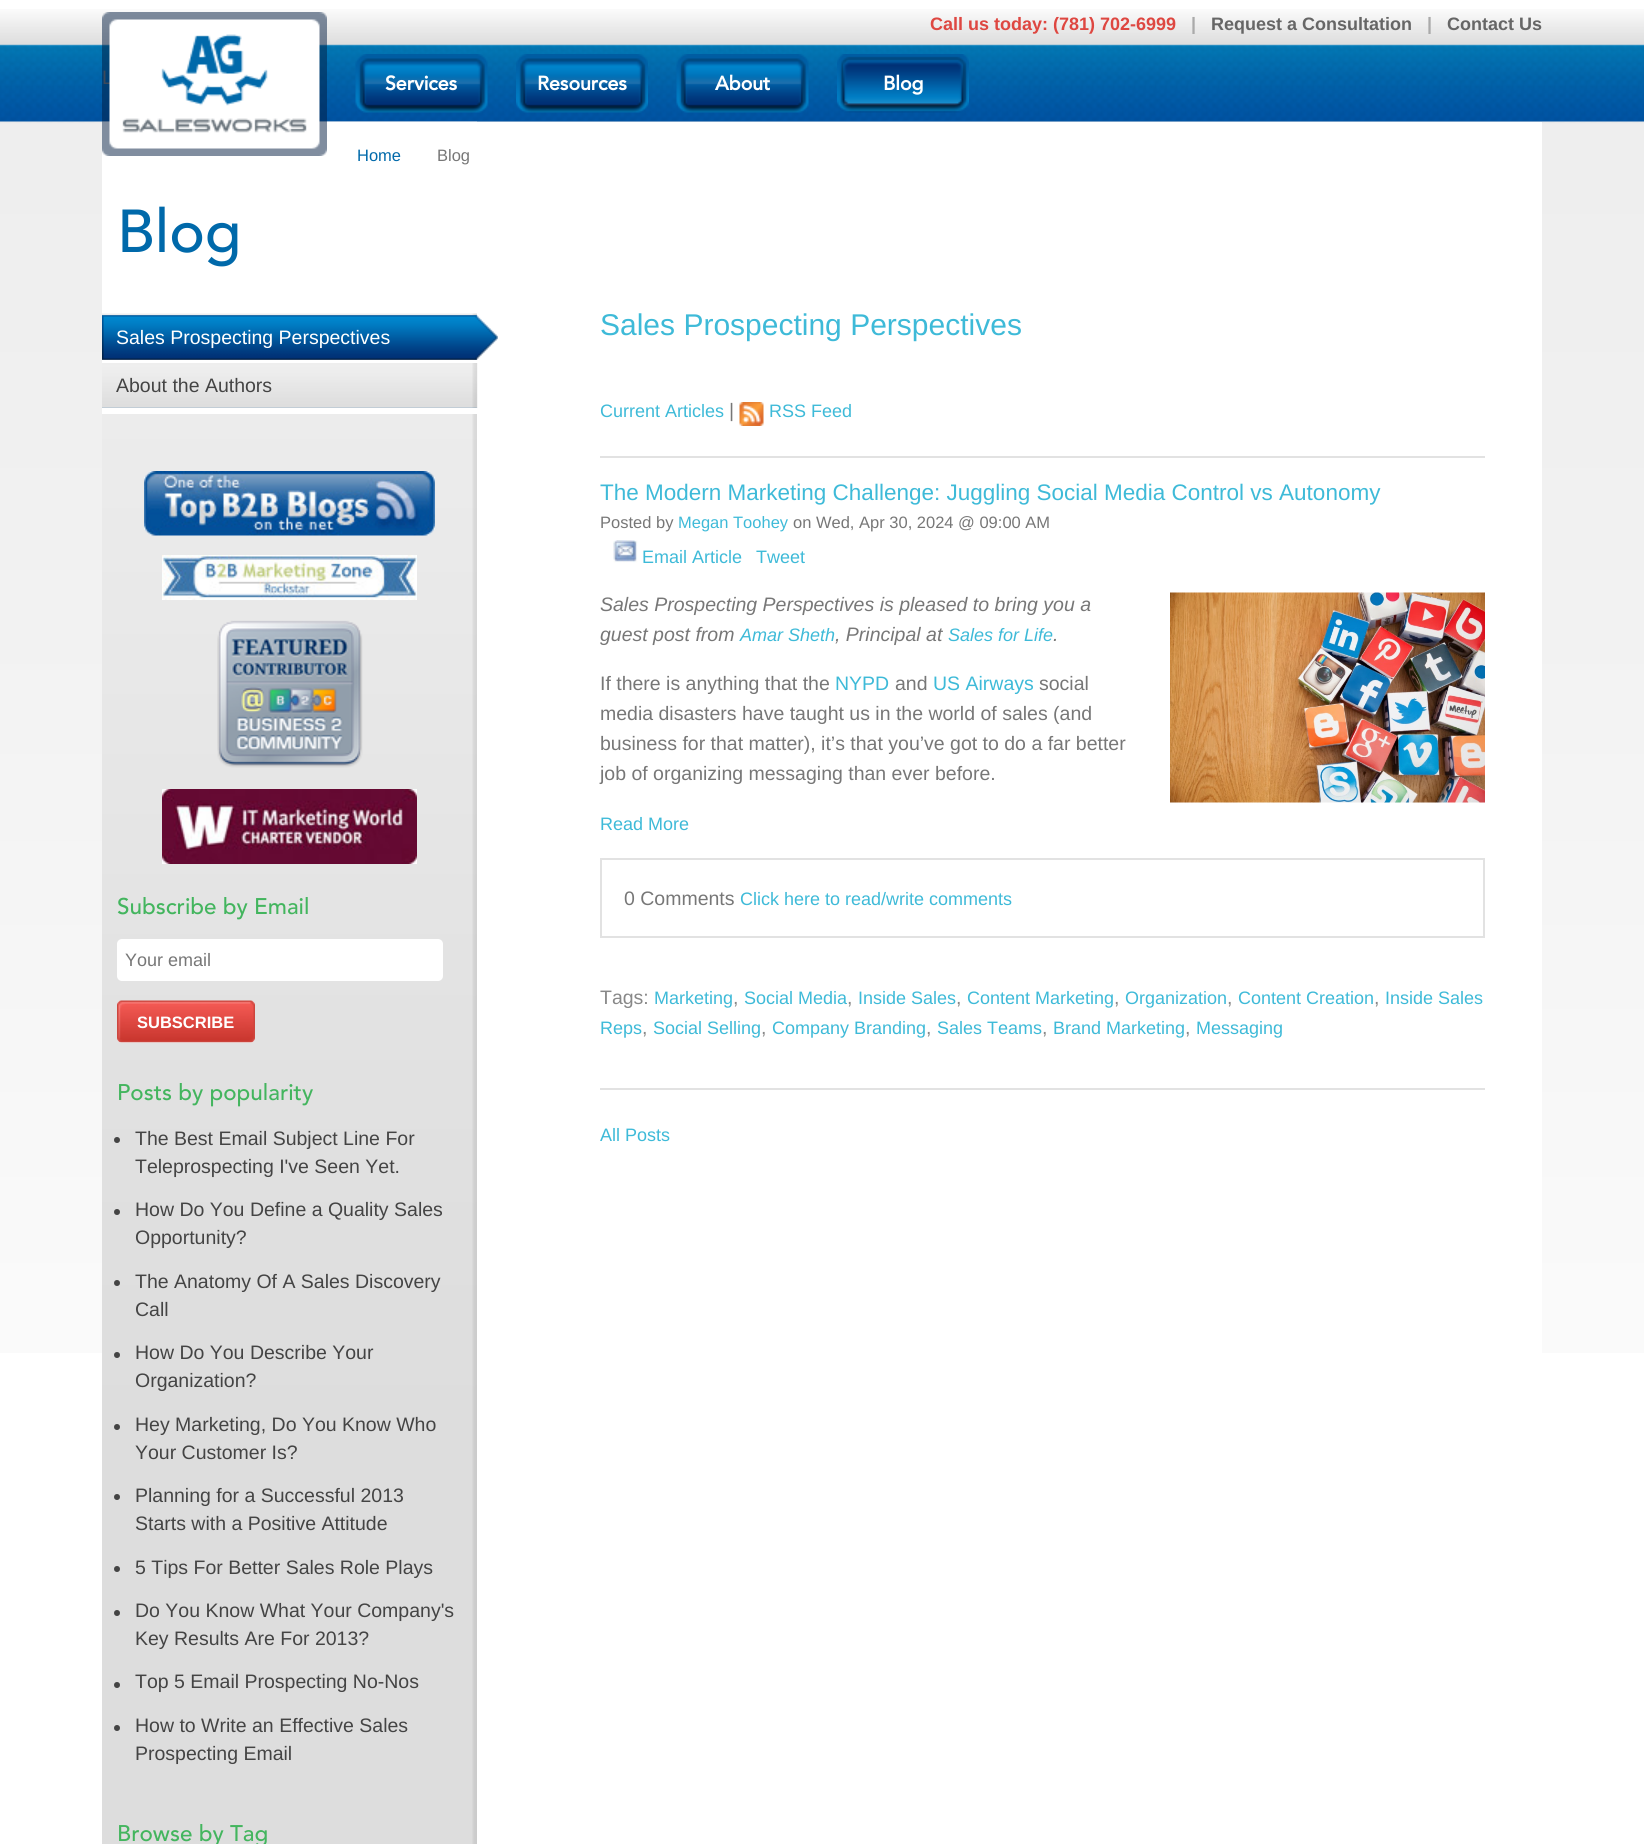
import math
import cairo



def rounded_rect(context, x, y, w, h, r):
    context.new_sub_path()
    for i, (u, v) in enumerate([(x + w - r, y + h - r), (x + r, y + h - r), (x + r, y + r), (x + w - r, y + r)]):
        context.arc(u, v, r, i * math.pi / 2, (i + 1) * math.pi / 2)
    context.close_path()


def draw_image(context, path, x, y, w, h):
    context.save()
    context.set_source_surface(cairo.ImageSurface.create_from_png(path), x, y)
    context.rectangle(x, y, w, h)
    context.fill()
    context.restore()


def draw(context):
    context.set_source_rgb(1, 1, 1)
    context.paint()
    draw_image(context, "images/1.png", 0, 9, 1644, 1344)
    context.set_source_rgb(1, 1, 1)
    context.rectangle(477, 122, 1065, 1231)
    context.fill()
    draw_image(context, "images/3.png", 102, 121, 375, 1723)
    draw_image(context, "images/4.png", 102, 315, 396, 45)
    context.rectangle(102, 360, 375, 3)
    context.fill()
    draw_image(context, "images/5.png", 102, 363, 376, 45)
    context.rectangle(102, 408, 375, 6)
    context.fill()
    draw_image(context, "images/6.png", 144, 471, 291, 65)
    draw_image(context, "images/7.png", 162, 555, 255, 45)
    draw_image(context, "images/8.png", 217, 620, 146, 148)
    draw_image(context, "images/9.png", 162, 789, 255, 75)
    rounded_rect(context, 117, 939, 326, 42, 5)
    context.fill()
    context.set_source_rgb(239 / 255, 239 / 255, 239 / 255)
    rounded_rect(context, 117, 1001, 138, 42, 5)
    context.fill()
    draw_image(context, "images/10.png", 117, 1000, 138, 43)
    context.set_source_rgb(68 / 255, 68 / 255, 68 / 255)
    context.arc(117, 1140, 3, 0, 2 * math.pi)
    context.fill()
    context.arc(117, 1212, 3, 0, 2 * math.pi)
    context.fill()
    context.arc(117, 1283, 3, 0, 2 * math.pi)
    context.fill()
    context.arc(117, 1355, 3, 0, 2 * math.pi)
    context.fill()
    context.arc(117, 1427, 3, 0, 2 * math.pi)
    context.fill()
    context.arc(117, 1497, 3, 0, 2 * math.pi)
    context.fill()
    context.arc(117, 1569, 3, 0, 2 * math.pi)
    context.fill()
    context.arc(117, 1613, 3, 0, 2 * math.pi)
    context.fill()
    context.arc(117, 1685, 3, 0, 2 * math.pi)
    context.fill()
    context.arc(117, 1728, 3, 0, 2 * math.pi)
    context.fill()
    context.set_source_rgb(226 / 255, 226 / 255, 226 / 255)
    context.rectangle(600, 456, 885, 2)
    context.fill()
    draw_image(context, "images/11.png", 739, 402, 25, 24)
    context.rectangle(600, 1088, 885, 2)
    context.fill()
    draw_image(context, "images/12.png", 613, 540, 25, 23)
    draw_image(context, "images/13.png", 1170, 592, 315, 211)
    context.rectangle(601, 859, 883, 78)
    context.stroke()
    draw_image(context, "images/14.png", 355, 54, 133, 59)
    draw_image(context, "images/15.png", 516, 54, 132, 59)
    draw_image(context, "images/16.png", 676, 54, 133, 59)
    draw_image(context, "images/17.png", 837, 54, 132, 59)
    context.select_font_face("Liberation Sans", cairo.FontSlant.NORMAL, cairo.FontWeight.BOLD)
    context.set_font_size(18)
    context.set_source_rgb(222 / 255, 71 / 255, 65 / 255)
    context.move_to(930, 30)
    context.show_text("Call us today: (781) 702-6999")
    context.set_source_rgb(170 / 255, 170 / 255, 170 / 255)
    context.move_to(1191, 30)
    context.show_text("|")
    context.set_source_rgb(102 / 255, 102 / 255, 102 / 255)
    context.move_to(1211, 30)
    context.show_text("Request a Consultation")
    context.set_source_rgb(170 / 255, 170 / 255, 170 / 255)
    context.move_to(1427, 30)
    context.show_text("|")
    context.set_source_rgb(102 / 255, 102 / 255, 102 / 255)
    context.move_to(1447, 30)
    context.show_text("Contact Us")
    context.select_font_face("Liberation Sans")
    context.set_font_size(19.5)
    context.set_source_rgb(119 / 255, 119 / 255, 119 / 255)
    context.move_to(102, 84)
    context.show_text("L")
    draw_image(context, "images/2.png", 102, 12, 225, 144)
    context.set_font_size(16.5)
    context.set_source_rgb(0, 105 / 255, 170 / 255)
    context.move_to(357, 161)
    context.show_text("Home")
    context.set_source_rgb(119 / 255, 119 / 255, 119 / 255)
    context.move_to(437, 161)
    context.show_text("Blog")
    context.select_font_face("Avenir Medium")
    context.set_font_size(60)
    context.set_source_rgb(0, 105 / 255, 170 / 255)
    context.move_to(117, 252)
    context.show_text("Blog")
    context.select_font_face("Liberation Sans")
    context.set_font_size(19.5)
    context.set_source_rgb(1, 1, 1)
    context.move_to(116, 344)
    context.show_text("Sales Prospecting Perspectives")
    context.set_source_rgb(68 / 255, 68 / 255, 68 / 255)
    context.move_to(116, 392)
    context.show_text("About the Authors")
    context.select_font_face("Avenir Medium")
    context.set_font_size(22.5)
    context.set_source_rgb(67 / 255, 181 / 255, 94 / 255)
    context.move_to(117, 914)
    context.show_text("Subscribe by Email")
    context.select_font_face("Liberation Sans")
    context.set_font_size(18)
    context.set_source_rgb(119 / 255, 119 / 255, 119 / 255)
    context.move_to(125, 966)
    context.show_text("Your email")
    context.select_font_face("Liberation Sans", cairo.FontSlant.NORMAL, cairo.FontWeight.BOLD)
    context.set_font_size(16.5)
    context.set_source_rgb(1, 1, 1)
    context.move_to(137, 1028)
    context.show_text("SUBSCRIBE")
    context.select_font_face("Avenir Medium")
    context.set_font_size(22.5)
    context.set_source_rgb(67 / 255, 181 / 255, 94 / 255)
    context.move_to(117, 1100)
    context.show_text("Posts by popularity")
    context.select_font_face("Liberation Sans")
    context.set_font_size(19.5)
    context.set_source_rgb(68 / 255, 68 / 255, 68 / 255)
    context.move_to(135, 1145)
    context.show_text("The Best Email Subject Line For")
    context.move_to(135, 1173)
    context.show_text("Teleprospecting I've Seen Yet.")
    context.move_to(135, 1216)
    context.show_text("How Do You Define a Quality Sales")
    context.move_to(135, 1244)
    context.show_text("Opportunity?")
    context.move_to(135, 1288)
    context.show_text("The Anatomy Of A Sales Discovery")
    context.move_to(135, 1316)
    context.show_text("Call")
    context.move_to(135, 1359)
    context.show_text("How Do You Describe Your")
    context.move_to(135, 1387)
    context.show_text("Organization?")
    context.move_to(135, 1431)
    context.show_text("Hey Marketing, Do You Know Who")
    context.move_to(135, 1459)
    context.show_text("Your Customer Is?")
    context.move_to(135, 1502)
    context.show_text("Planning for a Successful 2013")
    context.move_to(135, 1530)
    context.show_text("Starts with a Positive Attitude")
    context.move_to(135, 1574)
    context.show_text("5 Tips For Better Sales Role Plays")
    context.move_to(135, 1617)
    context.show_text("Do You Know What Your Company's")
    context.move_to(135, 1645)
    context.show_text("Key Results Are For 2013?")
    context.move_to(135, 1688)
    context.show_text("Top 5 Email Prospecting No-Nos")
    context.move_to(135, 1732)
    context.show_text("How to Write an Effective Sales")
    context.move_to(135, 1760)
    context.show_text("Prospecting Email")
    context.select_font_face("Avenir Medium")
    context.set_font_size(22.5)
    context.set_source_rgb(67 / 255, 181 / 255, 94 / 255)
    context.move_to(117, 1841)
    context.show_text("Browse by Tag")
    context.select_font_face("Liberation Sans")
    context.set_font_size(30)
    context.set_source_rgb(62 / 255, 186 / 255, 216 / 255)
    context.move_to(600, 335)
    context.show_text("Sales Prospecting Perspectives")
    context.set_font_size(18)
    context.move_to(600, 417)
    context.show_text("Current Articles")
    context.set_font_size(19.5)
    context.set_source_rgb(119 / 255, 119 / 255, 119 / 255)
    context.move_to(729, 417)
    context.show_text("|")
    context.set_font_size(18)
    context.set_source_rgb(62 / 255, 186 / 255, 216 / 255)
    context.move_to(769, 417)
    context.show_text("RSS Feed")
    context.set_font_size(22.5)
    context.move_to(600, 500)
    context.show_text("The Modern Marketing Challenge: Juggling Social Media Control vs Autonomy")
    context.set_font_size(16.5)
    context.set_source_rgb(119 / 255, 119 / 255, 119 / 255)
    context.move_to(600, 528)
    context.show_text("Posted by")
    context.set_source_rgb(62 / 255, 186 / 255, 216 / 255)
    context.move_to(678, 528)
    context.show_text("Megan Toohey")
    context.set_source_rgb(119 / 255, 119 / 255, 119 / 255)
    context.move_to(793, 528)
    context.show_text("on Wed, Apr 30, 2024 @ 09:00 AM")
    context.set_font_size(18)
    context.set_source_rgb(62 / 255, 186 / 255, 216 / 255)
    context.move_to(642, 563)
    context.show_text("Email Article")
    context.move_to(756, 563)
    context.show_text("Tweet")
    context.select_font_face("Liberation Sans", cairo.FontSlant.ITALIC)
    context.set_font_size(19.5)
    context.set_source_rgb(119 / 255, 119 / 255, 119 / 255)
    context.move_to(600, 611)
    context.show_text("Sales Prospecting Perspectives is pleased to bring you a")
    context.move_to(600, 641)
    context.show_text("guest post from")
    context.set_font_size(18)
    context.set_source_rgb(62 / 255, 186 / 255, 216 / 255)
    context.move_to(740, 641)
    context.show_text("Amar Sheth")
    context.set_font_size(19.5)
    context.set_source_rgb(119 / 255, 119 / 255, 119 / 255)
    context.move_to(835, 641)
    context.show_text(", Principal at")
    context.set_font_size(18)
    context.set_source_rgb(62 / 255, 186 / 255, 216 / 255)
    context.move_to(948, 641)
    context.show_text("Sales for Life")
    context.set_font_size(19.5)
    context.set_source_rgb(119 / 255, 119 / 255, 119 / 255)
    context.move_to(1053, 641)
    context.show_text(".")
    context.select_font_face("Liberation Sans")
    context.move_to(600, 690)
    context.show_text("If there is anything that the")
    context.set_source_rgb(62 / 255, 186 / 255, 216 / 255)
    context.move_to(835, 690)
    context.show_text("NYPD")
    context.set_source_rgb(119 / 255, 119 / 255, 119 / 255)
    context.move_to(895, 690)
    context.show_text("and")
    context.set_source_rgb(62 / 255, 186 / 255, 216 / 255)
    context.move_to(933, 690)
    context.show_text("US Airways")
    context.set_source_rgb(119 / 255, 119 / 255, 119 / 255)
    context.move_to(1039, 690)
    context.show_text("social")
    context.move_to(600, 720)
    context.show_text("media disasters have taught us in the world of sales (and")
    context.move_to(600, 750)
    context.show_text("business for that matter), it’s that you’ve got to do a far better")
    context.move_to(600, 780)
    context.show_text("job of organizing messaging than ever before.")
    context.set_font_size(18)
    context.set_source_rgb(62 / 255, 186 / 255, 216 / 255)
    context.move_to(600, 830)
    context.show_text("Read More")
    context.set_font_size(19.5)
    context.set_source_rgb(119 / 255, 119 / 255, 119 / 255)
    context.move_to(624, 905)
    context.show_text("0 Comments")
    context.set_font_size(18)
    context.set_source_rgb(62 / 255, 186 / 255, 216 / 255)
    context.move_to(740, 905)
    context.show_text("Click here to read/write comments")
    context.set_font_size(19.5)
    context.set_source_rgb(136 / 255, 136 / 255, 136 / 255)
    context.move_to(600, 1004)
    context.show_text("Tags:")
    context.set_font_size(18)
    context.set_source_rgb(62 / 255, 186 / 255, 216 / 255)
    context.move_to(654, 1004)
    context.show_text("Marketing")
    context.set_font_size(19.5)
    context.set_source_rgb(136 / 255, 136 / 255, 136 / 255)
    context.move_to(733, 1004)
    context.show_text(",")
    context.set_font_size(18)
    context.set_source_rgb(62 / 255, 186 / 255, 216 / 255)
    context.move_to(744, 1004)
    context.show_text("Social Media")
    context.set_font_size(19.5)
    context.set_source_rgb(136 / 255, 136 / 255, 136 / 255)
    context.move_to(847, 1004)
    context.show_text(",")
    context.set_font_size(18)
    context.set_source_rgb(62 / 255, 186 / 255, 216 / 255)
    context.move_to(858, 1004)
    context.show_text("Inside Sales")
    context.set_font_size(19.5)
    context.set_source_rgb(136 / 255, 136 / 255, 136 / 255)
    context.move_to(956, 1004)
    context.show_text(",")
    context.set_font_size(18)
    context.set_source_rgb(62 / 255, 186 / 255, 216 / 255)
    context.move_to(967, 1004)
    context.show_text("Content Marketing")
    context.set_font_size(19.5)
    context.set_source_rgb(136 / 255, 136 / 255, 136 / 255)
    context.move_to(1114, 1004)
    context.show_text(",")
    context.set_font_size(18)
    context.set_source_rgb(62 / 255, 186 / 255, 216 / 255)
    context.move_to(1125, 1004)
    context.show_text("Organization")
    context.set_font_size(19.5)
    context.set_source_rgb(136 / 255, 136 / 255, 136 / 255)
    context.move_to(1227, 1004)
    context.show_text(",")
    context.set_font_size(18)
    context.set_source_rgb(62 / 255, 186 / 255, 216 / 255)
    context.move_to(1238, 1004)
    context.show_text("Content Creation")
    context.set_font_size(19.5)
    context.set_source_rgb(136 / 255, 136 / 255, 136 / 255)
    context.move_to(1374, 1004)
    context.show_text(",")
    context.set_font_size(18)
    context.set_source_rgb(62 / 255, 186 / 255, 216 / 255)
    context.move_to(1385, 1004)
    context.show_text("Inside Sales")
    context.move_to(600, 1034)
    context.show_text("Reps")
    context.set_font_size(19.5)
    context.set_source_rgb(136 / 255, 136 / 255, 136 / 255)
    context.move_to(642, 1034)
    context.show_text(",")
    context.set_font_size(18)
    context.set_source_rgb(62 / 255, 186 / 255, 216 / 255)
    context.move_to(653, 1034)
    context.show_text("Social Selling")
    context.set_font_size(19.5)
    context.set_source_rgb(136 / 255, 136 / 255, 136 / 255)
    context.move_to(761, 1034)
    context.show_text(",")
    context.set_font_size(18)
    context.set_source_rgb(62 / 255, 186 / 255, 216 / 255)
    context.move_to(772, 1034)
    context.show_text("Company Branding")
    context.set_font_size(19.5)
    context.set_source_rgb(136 / 255, 136 / 255, 136 / 255)
    context.move_to(926, 1034)
    context.show_text(",")
    context.set_font_size(18)
    context.set_source_rgb(62 / 255, 186 / 255, 216 / 255)
    context.move_to(937, 1034)
    context.show_text("Sales Teams")
    context.set_font_size(19.5)
    context.set_source_rgb(136 / 255, 136 / 255, 136 / 255)
    context.move_to(1042, 1034)
    context.show_text(",")
    context.set_font_size(18)
    context.set_source_rgb(62 / 255, 186 / 255, 216 / 255)
    context.move_to(1053, 1034)
    context.show_text("Brand Marketing")
    context.set_font_size(19.5)
    context.set_source_rgb(136 / 255, 136 / 255, 136 / 255)
    context.move_to(1185, 1034)
    context.show_text(",")
    context.set_font_size(18)
    context.set_source_rgb(62 / 255, 186 / 255, 216 / 255)
    context.move_to(1196, 1034)
    context.show_text("Messaging")
    context.move_to(600, 1141)
    context.show_text("All Posts")
    context.select_font_face("Avenir", cairo.FontSlant.NORMAL, cairo.FontWeight.BOLD)
    context.set_font_size(19.5)
    context.set_source_rgb(1, 1, 1)
    context.move_to(385, 90)
    context.show_text("Services")
    context.move_to(537, 90)
    context.show_text("Resources")
    context.move_to(715, 90)
    context.show_text("About")
    context.move_to(883, 90)
    context.show_text("Blog")


surface = cairo.ImageSurface(cairo.Format.RGB24, 1644, 1844)
context = cairo.Context(surface)
options = cairo.FontOptions()
options.set_hint_metrics(cairo.HintMetrics.OFF)
options.set_hint_style(cairo.HintStyle.NONE)
context.set_font_options(options)
context.set_miter_limit(4)
draw(context)
surface.write_to_png("out.png")
